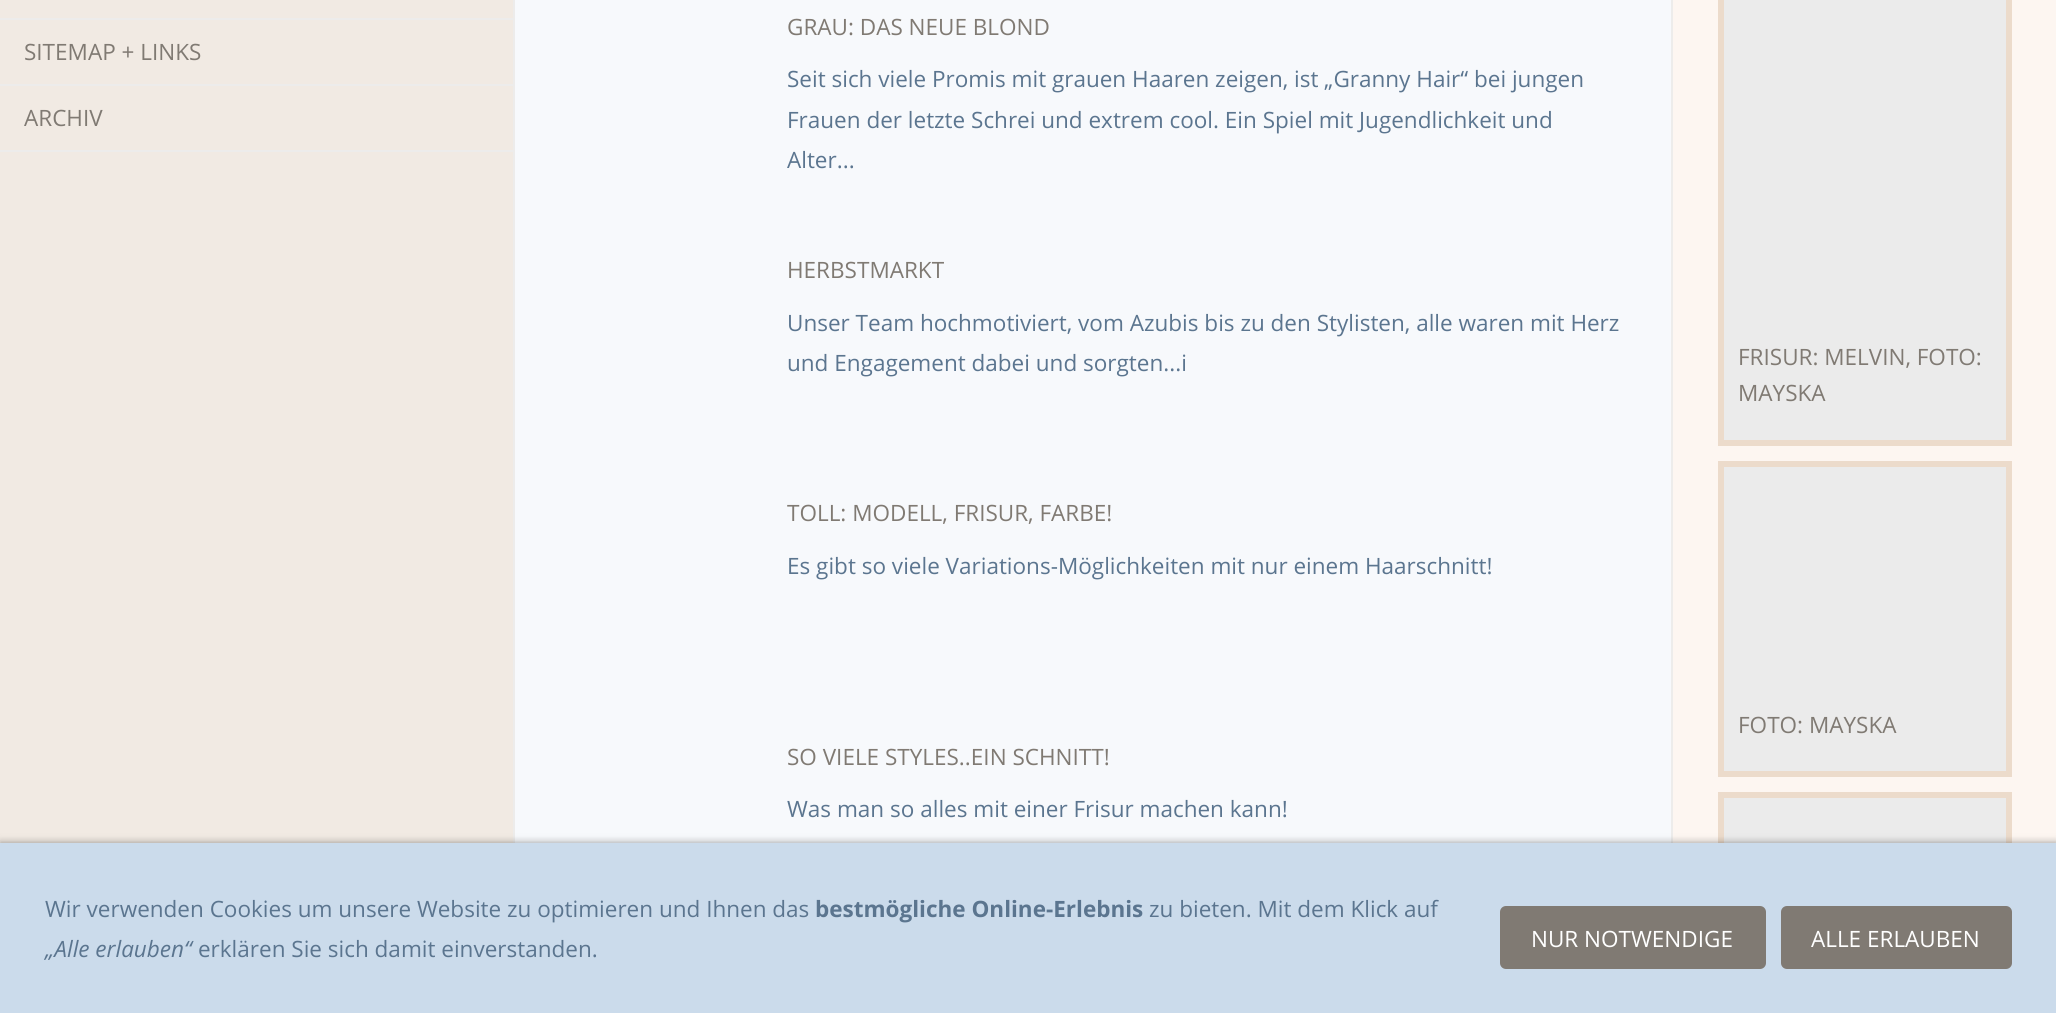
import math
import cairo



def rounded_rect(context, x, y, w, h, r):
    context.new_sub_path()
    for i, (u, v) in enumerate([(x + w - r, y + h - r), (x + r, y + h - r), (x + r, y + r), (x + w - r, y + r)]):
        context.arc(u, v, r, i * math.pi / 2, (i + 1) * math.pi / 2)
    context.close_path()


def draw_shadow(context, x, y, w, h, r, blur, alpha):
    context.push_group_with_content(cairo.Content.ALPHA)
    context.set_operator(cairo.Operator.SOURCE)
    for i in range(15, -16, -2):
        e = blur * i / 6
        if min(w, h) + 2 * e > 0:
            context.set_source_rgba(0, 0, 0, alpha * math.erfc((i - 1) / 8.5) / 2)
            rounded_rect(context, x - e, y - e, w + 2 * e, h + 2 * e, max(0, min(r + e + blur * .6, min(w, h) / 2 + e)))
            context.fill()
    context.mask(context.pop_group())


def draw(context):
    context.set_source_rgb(241 / 255, 234 / 255, 227 / 255)
    context.paint()
    context.set_source_rgb(237 / 255, 236 / 255, 235 / 255)
    context.rectangle(513, 0, 2, 843)
    context.fill()
    context.rectangle(0, 18, 513, 2)
    context.fill()
    context.rectangle(0, 84, 513, 2)
    context.fill()
    context.rectangle(0, 150, 513, 2)
    context.fill()
    context.set_source_rgb(247 / 255, 249 / 255, 252 / 255)
    context.rectangle(515, 0, 1156, 843)
    context.fill()
    context.set_source_rgb(253 / 255, 246 / 255, 241 / 255)
    context.rectangle(1673, 0, 383, 843)
    context.fill()
    context.set_source_rgb(237 / 255, 236 / 255, 235 / 255)
    context.rectangle(1671, 0, 2, 843)
    context.fill()
    context.set_source_rgb(235 / 255, 235 / 255, 235 / 255)
    context.rectangle(1721, -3, 288, 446)
    context.fill_preserve()
    context.set_source_rgb(236 / 255, 219 / 255, 203 / 255)
    context.set_line_width(6)
    context.stroke()
    context.set_source_rgb(235 / 255, 235 / 255, 235 / 255)
    context.rectangle(1721, 464, 288, 310)
    context.fill_preserve()
    context.set_source_rgb(236 / 255, 219 / 255, 203 / 255)
    context.stroke()
    context.set_source_rgb(235 / 255, 235 / 255, 235 / 255)
    context.rectangle(1724, 798, 282, 45)
    context.fill()
    context.rectangle(1721, 795, 288, 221)
    context.set_source_rgb(236 / 255, 219 / 255, 203 / 255)
    context.stroke()
    context.set_source_rgb(0, 0, 0)
    draw_shadow(context, 0, 843, 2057, 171, 0, 4, 0.4)
    context.set_source_rgb(203 / 255, 219 / 255, 235 / 255)
    context.rectangle(0, 843, 2056, 170)
    context.fill()
    context.set_source_rgb(128 / 255, 122 / 255, 115 / 255)
    rounded_rect(context, 1501, 907, 264, 61, 5)
    context.fill_preserve()
    context.set_line_width(2)
    context.stroke()
    rounded_rect(context, 1782, 907, 229, 61, 5)
    context.fill_preserve()
    context.stroke()
    context.select_font_face("Open Sans")
    context.set_font_size(22.5)
    context.move_to(24, 60)
    context.show_text("SITEMAP + LINKS")
    context.move_to(24, 126)
    context.show_text("ARCHIV")
    context.move_to(787, 35)
    context.show_text("GRAU: DAS NEUE BLOND")
    context.set_source_rgb(91 / 255, 117 / 255, 143 / 255)
    context.move_to(787, 87)
    context.show_text("Seit sich viele Promis mit grauen Haaren zeigen, ist „Granny Hair“ bei jungen")
    context.move_to(787, 128)
    context.show_text("Frauen der letzte Schrei und extrem cool. Ein Spiel mit Jugendlichkeit und")
    context.move_to(787, 168)
    context.show_text("Alter...")
    context.set_source_rgb(128 / 255, 122 / 255, 115 / 255)
    context.move_to(787, 278)
    context.show_text("HERBSTMARKT")
    context.set_source_rgb(91 / 255, 117 / 255, 143 / 255)
    context.move_to(787, 331)
    context.show_text("Unser Team hochmotiviert, vom Azubis bis zu den Stylisten, alle waren mit Herz")
    context.move_to(787, 371)
    context.show_text("und Engagement dabei und sorgten...i")
    context.set_source_rgb(128 / 255, 122 / 255, 115 / 255)
    context.move_to(787, 521)
    context.show_text("TOLL: MODELL, FRISUR, FARBE!")
    context.set_source_rgb(91 / 255, 117 / 255, 143 / 255)
    context.move_to(787, 574)
    context.show_text("Es gibt so viele Variations-Möglichkeiten mit nur einem Haarschnitt!")
    context.set_source_rgb(128 / 255, 122 / 255, 115 / 255)
    context.move_to(787, 765)
    context.show_text("SO VIELE STYLES..EIN SCHNITT!")
    context.set_source_rgb(91 / 255, 117 / 255, 143 / 255)
    context.move_to(787, 817)
    context.show_text("Was man so alles mit einer Frisur machen kann!")
    context.set_source_rgb(128 / 255, 122 / 255, 115 / 255)
    context.move_to(1738, 365)
    context.show_text("FRISUR: MELVIN, FOTO:")
    context.move_to(1738, 401)
    context.show_text("MAYSKA")
    context.move_to(1738, 733)
    context.show_text("FOTO: MAYSKA")
    context.set_source_rgb(91 / 255, 117 / 255, 143 / 255)
    context.move_to(45, 917)
    context.show_text("Wir verwenden Cookies um unsere Website zu optimieren und Ihnen das")
    context.select_font_face("Open Sans", cairo.FontSlant.NORMAL, cairo.FontWeight.BOLD)
    context.move_to(815, 917)
    context.show_text("bestmögliche Online-Erlebnis")
    context.select_font_face("Open Sans")
    context.move_to(1149, 917)
    context.show_text("zu bieten. Mit dem Klick auf")
    context.select_font_face("Open Sans", cairo.FontSlant.ITALIC)
    context.move_to(45, 957)
    context.show_text("„Alle erlauben“")
    context.select_font_face("Open Sans")
    context.move_to(198, 957)
    context.show_text("erklären Sie sich damit einverstanden.")
    context.set_source_rgb(1, 1, 1)
    context.move_to(1531, 947)
    context.show_text("NUR NOTWENDIGE")
    context.move_to(1811, 947)
    context.show_text("ALLE ERLAUBEN")


surface = cairo.ImageSurface(cairo.Format.RGB24, 2056, 1013)
context = cairo.Context(surface)
options = cairo.FontOptions()
options.set_hint_metrics(cairo.HintMetrics.OFF)
options.set_hint_style(cairo.HintStyle.NONE)
context.set_font_options(options)
context.set_miter_limit(4)
draw(context)
surface.write_to_png("out.png")
